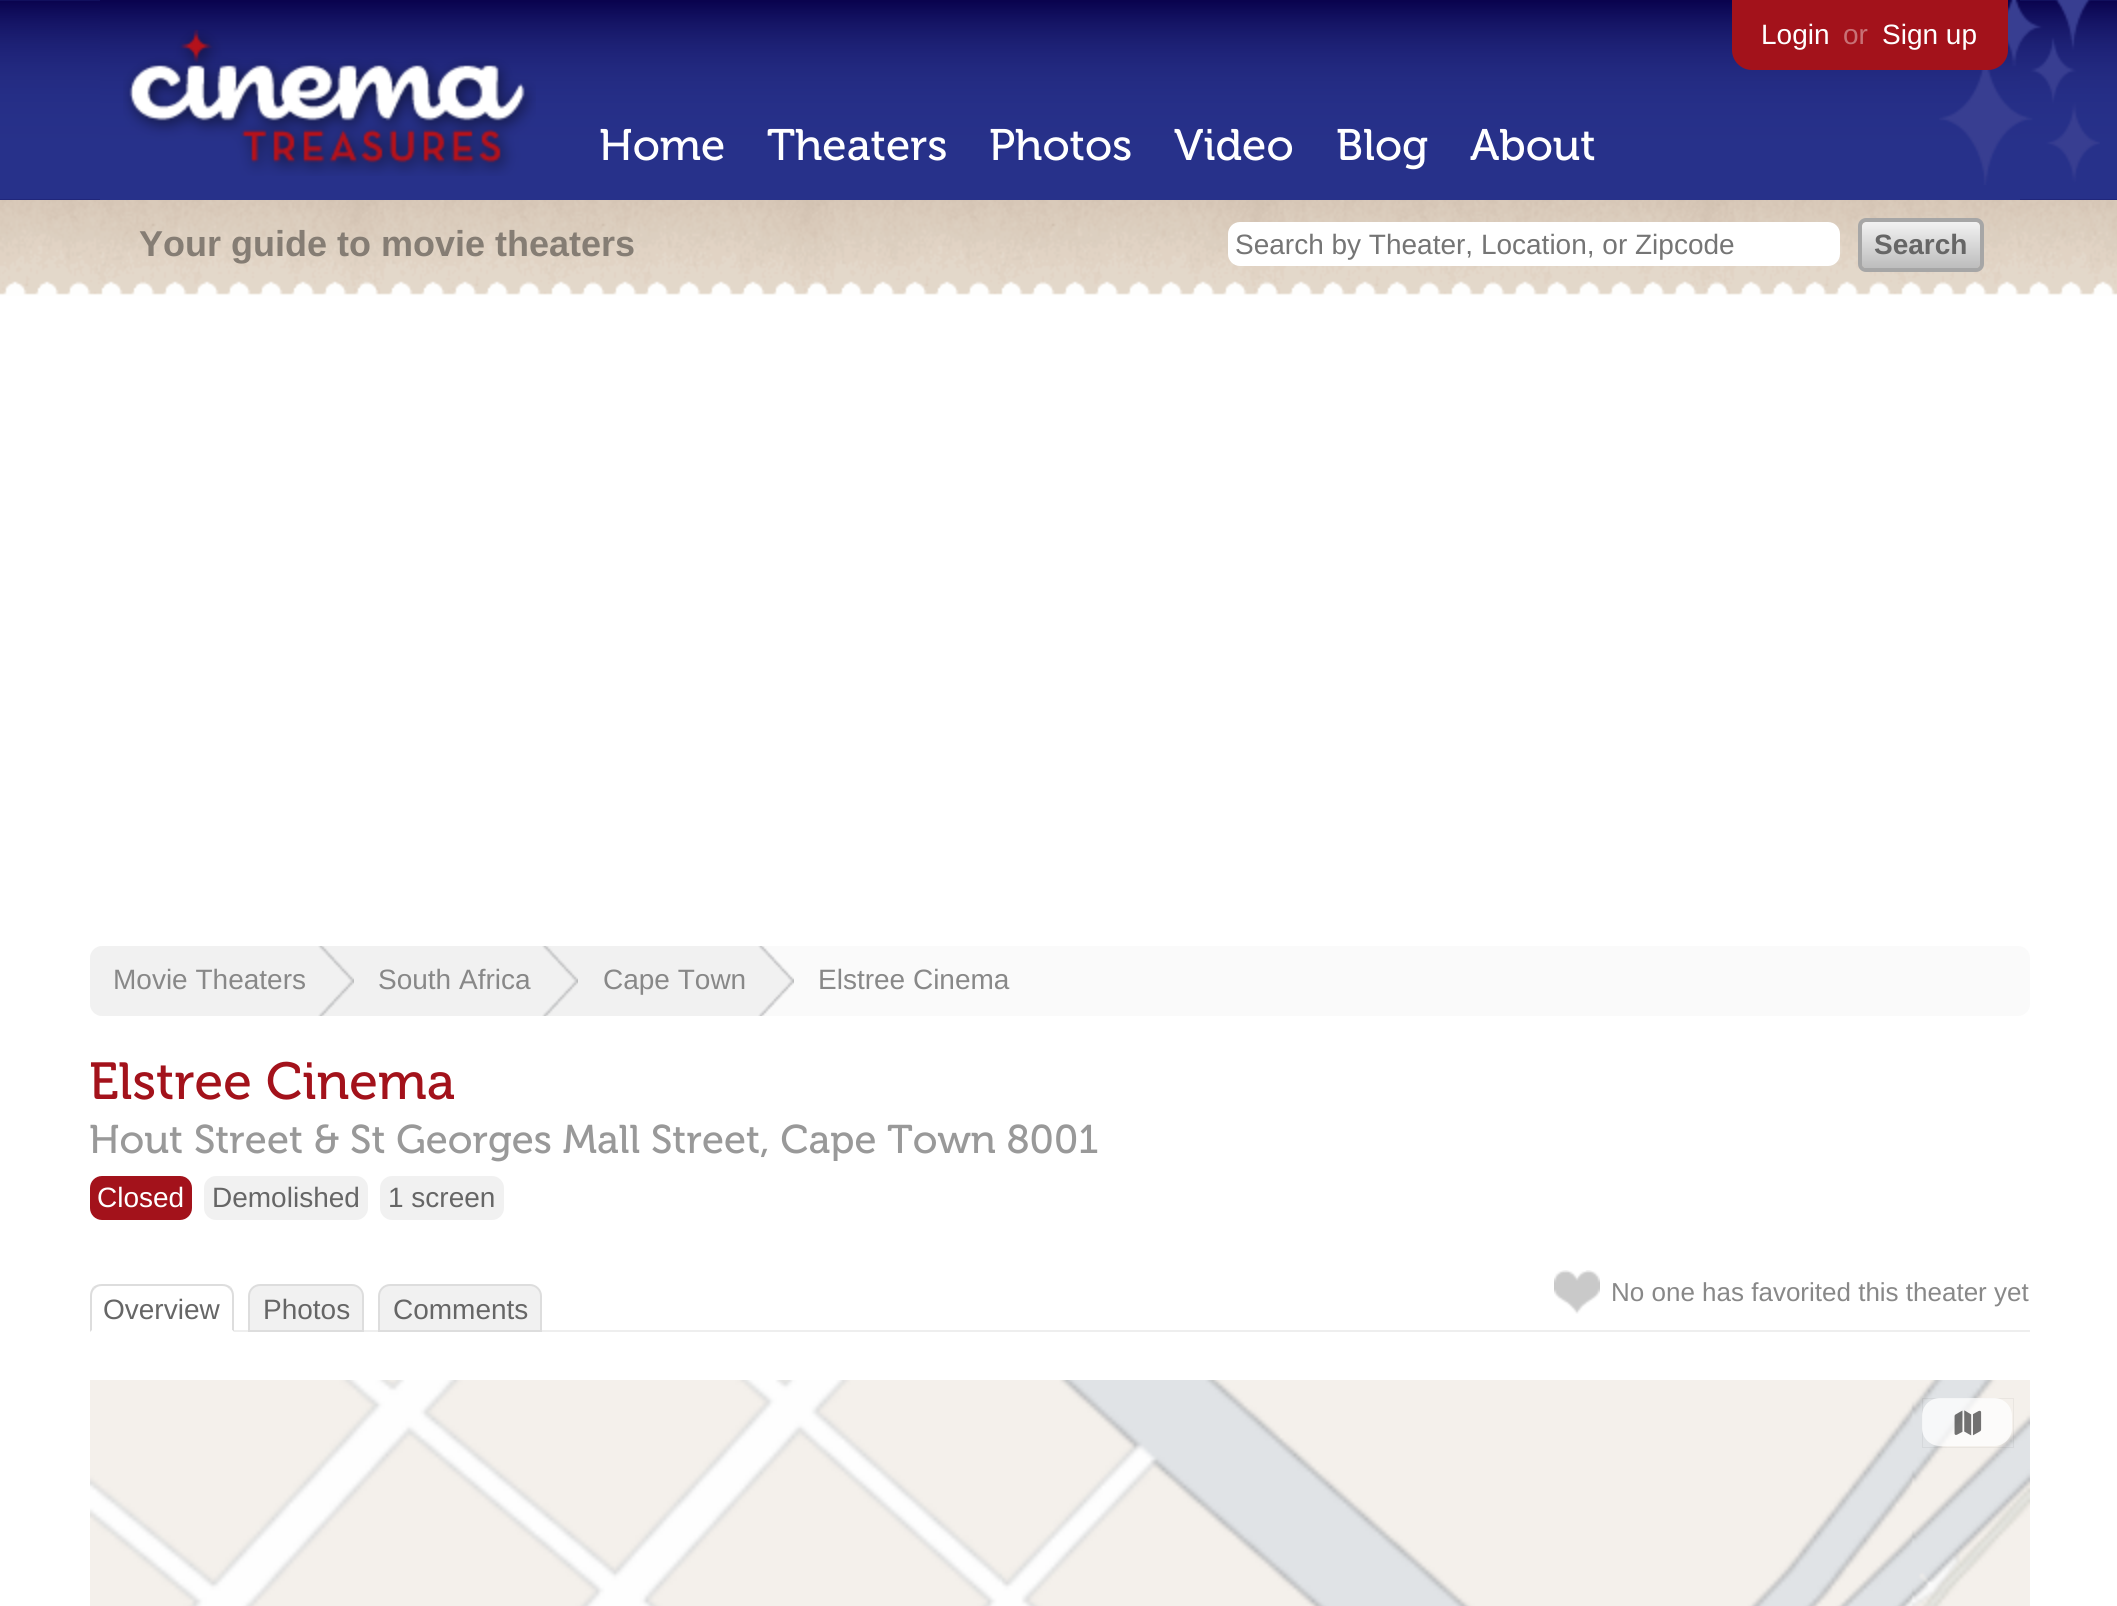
import math
import cairo



def rounded_rect(context, x, y, w, h, r):
    context.new_sub_path()
    for i, (u, v) in enumerate([(x + w - r, y + h - r), (x + r, y + h - r), (x + r, y + r), (x + w - r, y + r)]):
        context.arc(u, v, r, i * math.pi / 2, (i + 1) * math.pi / 2)
    context.close_path()


def draw_image(context, path, x, y, w, h):
    context.save()
    context.set_source_surface(cairo.ImageSurface.create_from_png(path), x, y)
    context.rectangle(x, y, w, h)
    context.fill()
    context.restore()


def draw(context):
    context.set_source_rgb(1, 1, 1)
    context.paint()
    draw_image(context, "images/1.png", 0, 0, 2117, 200)
    draw_image(context, "images/2.png", 100, 0, 1920, 200)
    draw_image(context, "images/3.png", 123, 29, 413, 147)
    draw_image(context, "images/4.png", 1939, 0, 161, 185)
    context.set_source_rgb(163 / 255, 18 / 255, 27 / 255)
    context.new_path()
    context.move_to(1732, 0)
    context.line_to(2008, 0)
    context.line_to(2008, 50)
    context.curve_to(2008, 61, 1999, 70, 1988, 70)
    context.line_to(1752, 70)
    context.curve_to(1741, 70, 1732, 61, 1732, 50)
    context.close_path()
    context.fill()
    draw_image(context, "images/5.png", 0, 200, 2117, 96)
    context.set_source_rgb(1, 1, 1)
    rounded_rect(context, 1228, 222, 612, 44, 12)
    context.fill()
    gradient = cairo.LinearGradient(1921, 222, 1921, 268)
    gradient.add_color_stop_rgba(0, 242 / 255, 242 / 255, 242 / 255, 1)
    gradient.add_color_stop_rgba(1, 189 / 255, 189 / 255, 189 / 255, 1)
    context.set_source(gradient)
    rounded_rect(context, 1862, 222, 118, 46, 4)
    context.fill()
    rounded_rect(context, 1860, 220, 122, 50, 6)
    context.set_source_rgb(166 / 255, 166 / 255, 166 / 255)
    context.set_line_width(4)
    context.stroke()
    context.set_source_rgb(250 / 255, 250 / 255, 250 / 255)
    rounded_rect(context, 90, 946, 1940, 70, 12)
    context.fill()
    context.set_source_rgb(241 / 255, 241 / 255, 241 / 255)
    context.new_path()
    context.move_to(102, 946)
    context.line_to(354, 946)
    context.line_to(354, 1016)
    context.line_to(102, 1016)
    context.curve_to(95.5, 1016, 90, 1010.5, 90, 1004)
    context.line_to(90, 958)
    context.curve_to(90, 951.5, 95.5, 946, 102, 946)
    context.close_path()
    context.fill()
    draw_image(context, "images/6.png", 318, 946, 36, 70)
    context.rectangle(354, 946, 440, 70)
    context.fill()
    draw_image(context, "images/6.png", 542, 946, 36, 70)
    draw_image(context, "images/7.png", 758, 946, 36, 70)
    context.set_source_rgb(163 / 255, 18 / 255, 27 / 255)
    rounded_rect(context, 90, 1176, 102, 44, 12)
    context.fill()
    context.set_source_rgb(241 / 255, 241 / 255, 241 / 255)
    rounded_rect(context, 204, 1176, 164, 44, 12)
    context.fill()
    rounded_rect(context, 380, 1176, 124, 44, 12)
    context.fill()
    context.set_source_rgb(238 / 255, 238 / 255, 238 / 255)
    context.rectangle(234, 1330, 1796, 2)
    context.fill()
    context.set_source_rgb(221 / 255, 221 / 255, 221 / 255)
    context.new_path()
    context.move_to(102, 1284)
    context.curve_to(98, 1284, 96, 1285, 93, 1287)
    context.line_to(95, 1289)
    context.curve_to(96, 1287, 99, 1286, 102, 1286)
    context.line_to(222, 1286)
    context.curve_to(225, 1286, 228, 1287, 229, 1289)
    context.line_to(231, 1287)
    context.curve_to(228, 1285, 226, 1284, 222, 1284)
    context.close_path()
    context.fill()
    context.new_path()
    context.move_to(234, 1332)
    context.line_to(234, 1296)
    context.curve_to(234, 1292, 233, 1290, 231, 1287)
    context.line_to(229, 1289)
    context.curve_to(231, 1290, 232, 1293, 232, 1296)
    context.line_to(232, 1330)
    context.close_path()
    context.fill()
    context.set_source_rgb(1, 1, 1)
    context.new_path()
    context.move_to(234, 1332)
    context.line_to(232, 1330)
    context.line_to(92, 1330)
    context.line_to(90, 1332)
    context.close_path()
    context.fill()
    context.set_source_rgb(221 / 255, 221 / 255, 221 / 255)
    context.new_path()
    context.move_to(90, 1332)
    context.line_to(92, 1330)
    context.line_to(92, 1296)
    context.curve_to(92, 1293, 93, 1290, 95, 1289)
    context.line_to(93, 1287)
    context.curve_to(91, 1290, 90, 1292, 90, 1296)
    context.close_path()
    context.fill()
    context.set_source_rgb(241 / 255, 241 / 255, 241 / 255)
    context.new_path()
    context.move_to(260, 1285)
    context.line_to(352, 1285)
    context.curve_to(358, 1285, 363, 1290, 363, 1296)
    context.line_to(363, 1331)
    context.line_to(249, 1331)
    context.line_to(249, 1296)
    context.curve_to(249, 1290, 254, 1285, 260, 1285)
    context.close_path()
    context.fill_preserve()
    context.set_source_rgb(221 / 255, 221 / 255, 221 / 255)
    context.set_line_width(2)
    context.stroke()
    context.set_source_rgb(241 / 255, 241 / 255, 241 / 255)
    context.new_path()
    context.move_to(390, 1285)
    context.line_to(530, 1285)
    context.curve_to(536, 1285, 541, 1290, 541, 1296)
    context.line_to(541, 1331)
    context.line_to(379, 1331)
    context.line_to(379, 1296)
    context.curve_to(379, 1290, 384, 1285, 390, 1285)
    context.close_path()
    context.fill_preserve()
    context.set_source_rgb(221 / 255, 221 / 255, 221 / 255)
    context.stroke()
    draw_image(context, "images/8.png", 1554, 1270, 46, 44)
    draw_image(context, "images/9.png", 90, 1380, 1940, 226)
    context.rectangle(1922.5, 1398.5, 91, 49)
    context.set_source_rgba(0, 0, 0, 0.05)
    context.set_line_width(1)
    context.stroke()
    context.set_source_rgba(1, 1, 1, 0.75)
    rounded_rect(context, 1922, 1398, 90, 48, 18)
    context.fill()
    draw_image(context, "images/10.png", 1954, 1410, 28, 26)
    context.select_font_face("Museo")
    context.set_font_size(44)
    context.set_source_rgb(1, 1, 1)
    context.move_to(599, 160)
    context.show_text("Home")
    context.move_to(767, 160)
    context.show_text("Theaters")
    context.move_to(989, 160)
    context.show_text("Photos")
    context.move_to(1174, 160)
    context.show_text("Video")
    context.move_to(1336, 160)
    context.show_text("Blog")
    context.move_to(1470, 160)
    context.show_text("About")
    context.select_font_face("Liberation Sans")
    context.set_font_size(28)
    context.move_to(1761, 44)
    context.show_text("Login")
    context.set_source_rgb(200 / 255, 113 / 255, 118 / 255)
    context.move_to(1843, 44)
    context.show_text("or")
    context.set_source_rgb(1, 1, 1)
    context.move_to(1882, 44)
    context.show_text("Sign up")
    context.select_font_face("Liberation Sans", cairo.FontSlant.NORMAL, cairo.FontWeight.BOLD)
    context.set_font_size(36)
    context.set_source_rgb(133 / 255, 125 / 255, 116 / 255)
    context.move_to(139, 256)
    context.show_text("Your guide to movie theaters")
    context.select_font_face("Liberation Sans")
    context.set_font_size(28)
    context.set_source_rgb(117 / 255, 117 / 255, 117 / 255)
    context.move_to(1235, 254)
    context.show_text("Search by Theater, Location, or Zipcode")
    context.select_font_face("Liberation Sans", cairo.FontSlant.NORMAL, cairo.FontWeight.BOLD)
    context.set_source_rgb(102 / 255, 102 / 255, 102 / 255)
    context.move_to(1874, 254)
    context.show_text("Search")
    context.select_font_face("Liberation Sans")
    context.set_source_rgb(136 / 255, 136 / 255, 136 / 255)
    context.move_to(113, 989)
    context.show_text("Movie Theaters")
    context.move_to(378, 989)
    context.show_text("South Africa")
    context.move_to(603, 989)
    context.show_text("Cape Town")
    context.move_to(818, 989)
    context.show_text("Elstree Cinema")
    context.select_font_face("Museo")
    context.set_font_size(52)
    context.set_source_rgb(163 / 255, 18 / 255, 27 / 255)
    context.move_to(89, 1099)
    context.show_text("Elstree Cinema")
    context.set_font_size(40)
    context.set_source_rgb(153 / 255, 153 / 255, 153 / 255)
    context.move_to(89, 1153)
    context.show_text("Hout Street & St Georges Mall Street, Cape Town 8001")
    context.select_font_face("Liberation Sans")
    context.set_font_size(28)
    context.set_source_rgb(1, 1, 1)
    context.move_to(97, 1207)
    context.show_text("Closed")
    context.set_source_rgb(102 / 255, 102 / 255, 102 / 255)
    context.move_to(212, 1207)
    context.show_text("Demolished")
    context.move_to(388, 1207)
    context.show_text("1 screen")
    context.move_to(103, 1319)
    context.show_text("Overview")
    context.move_to(263, 1319)
    context.show_text("Photos")
    context.move_to(393, 1319)
    context.show_text("Comments")
    context.set_font_size(26)
    context.set_source_rgb(136 / 255, 136 / 255, 136 / 255)
    context.move_to(1611, 1301)
    context.show_text("No one has favorited this theater yet")


surface = cairo.ImageSurface(cairo.Format.RGB24, 2117, 1606)
context = cairo.Context(surface)
options = cairo.FontOptions()
options.set_hint_metrics(cairo.HintMetrics.OFF)
options.set_hint_style(cairo.HintStyle.NONE)
context.set_font_options(options)
context.set_miter_limit(4)
draw(context)
surface.write_to_png("out.png")
